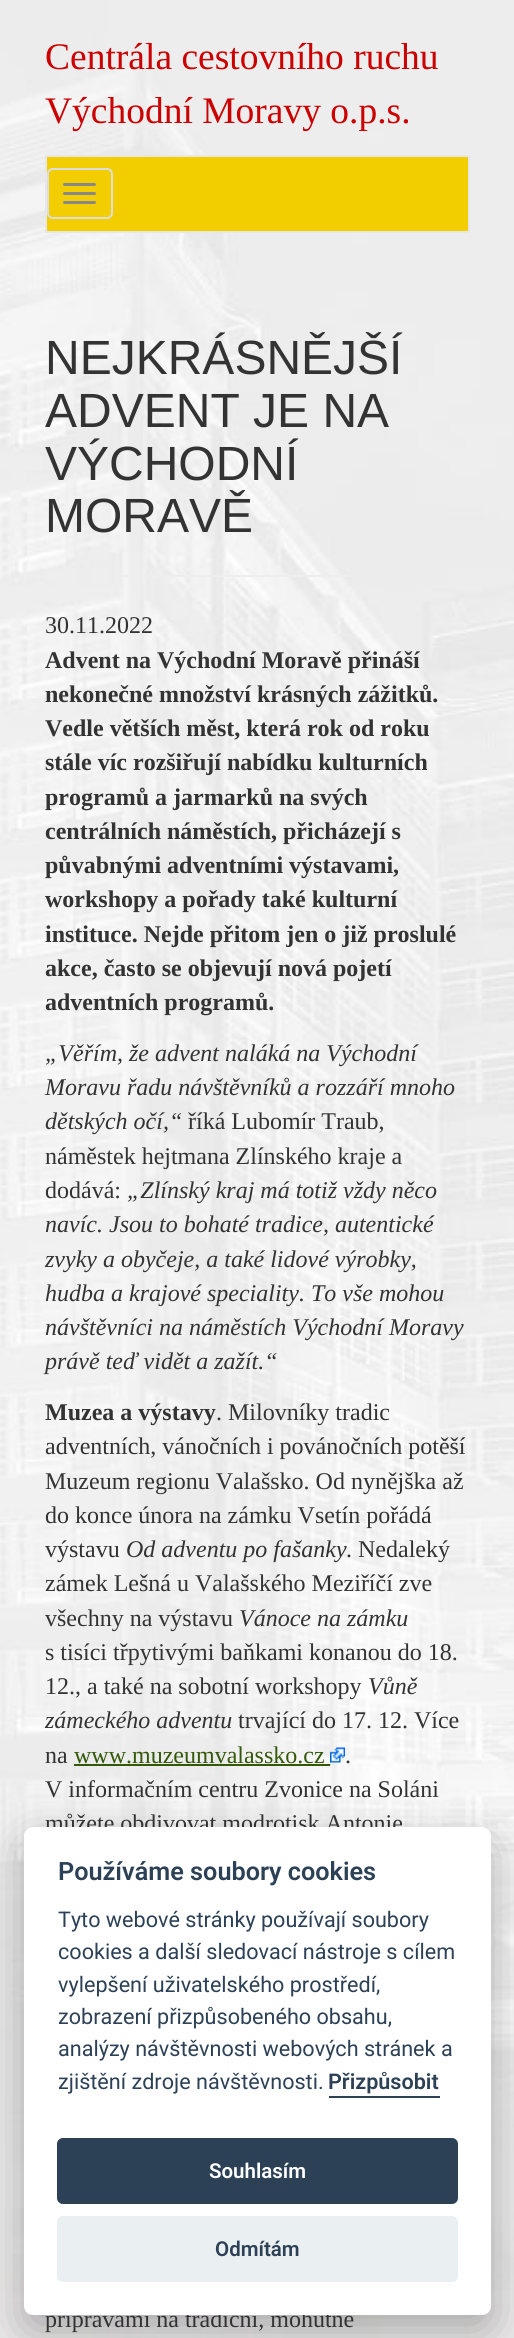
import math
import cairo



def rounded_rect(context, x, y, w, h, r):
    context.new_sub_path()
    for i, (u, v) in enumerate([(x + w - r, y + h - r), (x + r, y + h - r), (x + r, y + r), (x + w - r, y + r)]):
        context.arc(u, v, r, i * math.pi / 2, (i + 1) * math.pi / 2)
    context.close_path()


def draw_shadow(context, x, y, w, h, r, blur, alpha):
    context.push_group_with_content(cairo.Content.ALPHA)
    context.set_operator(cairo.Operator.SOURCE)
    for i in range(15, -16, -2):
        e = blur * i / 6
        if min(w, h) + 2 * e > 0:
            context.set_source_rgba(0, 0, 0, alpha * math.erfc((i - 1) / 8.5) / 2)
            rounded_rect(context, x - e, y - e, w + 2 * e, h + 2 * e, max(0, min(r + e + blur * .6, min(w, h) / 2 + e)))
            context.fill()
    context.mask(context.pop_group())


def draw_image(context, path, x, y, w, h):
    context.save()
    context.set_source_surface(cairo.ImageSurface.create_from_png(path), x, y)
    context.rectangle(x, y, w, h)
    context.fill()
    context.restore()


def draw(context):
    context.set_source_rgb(1, 1, 1)
    context.paint()
    draw_image(context, "images/1.png", 0, 0, 514, 2338)
    context.set_source_rgb(242 / 255, 206 / 255, 0)
    context.rectangle(46, 156, 423, 76)
    context.fill_preserve()
    context.set_source_rgb(231 / 255, 231 / 255, 231 / 255)
    context.stroke()
    rounded_rect(context, 48, 169, 64, 49, 5)
    context.set_source_rgb(221 / 255, 221 / 255, 221 / 255)
    context.stroke()
    context.set_source_rgb(136 / 255, 136 / 255, 136 / 255)
    rounded_rect(context, 63, 183, 33, 3, 1.5)
    context.fill()
    rounded_rect(context, 63, 192, 33, 3, 1.5)
    context.fill()
    rounded_rect(context, 63, 201, 33, 3, 1.5)
    context.fill()
    context.set_source_rgb(238 / 255, 238 / 255, 238 / 255)
    context.rectangle(123, 575, 227, 2)
    context.fill()
    context.set_source_rgb(51 / 255, 88 / 255, 8 / 255)
    context.rectangle(74, 1764, 256, 2)
    context.fill()
    draw_image(context, "images/2.png", 330, 1747, 15, 19)
    context.set_source_rgb(2 / 255, 2 / 255, 3 / 255)
    draw_shadow(context, 24, 1842, 467, 488, 9, 22.5, 0.28)
    context.select_font_face("Liberation Serif")
    context.set_font_size(37.5)
    context.set_source_rgb(204 / 255, 0, 0)
    context.move_to(45, 69)
    context.show_text("Centrála cestovního ruchu")
    context.move_to(45, 123)
    context.show_text("Východní Moravy o.p.s.")
    context.select_font_face("Liberation Sans")
    context.set_font_size(48)
    context.set_source_rgb(51 / 255, 51 / 255, 51 / 255)
    context.move_to(45, 374)
    context.show_text("NEJKRÁSNĚJŠÍ")
    context.move_to(45, 427)
    context.show_text("ADVENT JE NA")
    context.move_to(45, 480)
    context.show_text("VÝCHODNÍ")
    context.move_to(45, 532)
    context.show_text("MORAVĚ")
    context.select_font_face("Liberation Serif")
    context.set_font_size(24)
    context.move_to(45, 633)
    context.show_text("30.11.2022")
    context.select_font_face("Liberation Serif", cairo.FontSlant.NORMAL, cairo.FontWeight.BOLD)
    context.move_to(45, 668)
    context.show_text("Advent na Východní Moravě přináší")
    context.move_to(45, 702)
    context.show_text("nekonečné množství krásných zážitků.")
    context.move_to(45, 736)
    context.show_text("Vedle větších měst, která rok od roku")
    context.move_to(45, 770)
    context.show_text("stále víc rozšiřují nabídku kulturních")
    context.move_to(45, 805)
    context.show_text("programů a jarmarků na svých")
    context.move_to(45, 839)
    context.show_text("centrálních náměstích, přicházejí s")
    context.move_to(45, 873)
    context.show_text("půvabnými adventními výstavami,")
    context.move_to(45, 907)
    context.show_text("workshopy a pořady také kulturní")
    context.move_to(45, 942)
    context.show_text("instituce. Nejde přitom jen o již proslulé")
    context.move_to(45, 976)
    context.show_text("akce, často se objevují nová pojetí")
    context.move_to(45, 1010)
    context.show_text("adventních programů.")
    context.select_font_face("Liberation Serif", cairo.FontSlant.ITALIC)
    context.move_to(45, 1061)
    context.show_text("„Věřím, že advent naláká na Východní")
    context.move_to(45, 1095)
    context.show_text("Moravu řadu návštěvníků a rozzáří mnoho")
    context.move_to(45, 1129)
    context.show_text("dětských očí,“")
    context.select_font_face("Liberation Serif")
    context.move_to(188, 1129)
    context.show_text("říká Lubomír Traub,")
    context.move_to(45, 1164)
    context.show_text("náměstek hejtmana Zlínského kraje a")
    context.move_to(45, 1198)
    context.show_text("dodává:")
    context.select_font_face("Liberation Serif", cairo.FontSlant.ITALIC)
    context.move_to(127, 1198)
    context.show_text("„Zlínský kraj má totiž vždy něco")
    context.move_to(45, 1232)
    context.show_text("navíc. Jsou to bohaté tradice, autentické")
    context.move_to(45, 1267)
    context.show_text("zvyky a obyčeje, a také lidové výrobky,")
    context.move_to(45, 1301)
    context.show_text("hudba a krajové speciality. To vše mohou")
    context.move_to(45, 1335)
    context.show_text("návštěvníci na náměstích Východní Moravy")
    context.move_to(45, 1369)
    context.show_text("právě teď vidět a zažít.“")
    context.select_font_face("Liberation Serif", cairo.FontSlant.NORMAL, cairo.FontWeight.BOLD)
    context.move_to(45, 1420)
    context.show_text("Muzea a výstavy")
    context.select_font_face("Liberation Serif")
    context.move_to(216, 1420)
    context.show_text(". Milovníky tradic")
    context.move_to(45, 1454)
    context.show_text("adventních, vánočních i povánočních potěší")
    context.move_to(45, 1489)
    context.show_text("Muzeum regionu Valašsko. Od nynějška až")
    context.move_to(45, 1523)
    context.show_text("do konce února na zámku Vsetín pořádá")
    context.move_to(45, 1557)
    context.show_text("výstavu")
    context.select_font_face("Liberation Serif", cairo.FontSlant.ITALIC)
    context.move_to(126, 1557)
    context.show_text("Od adventu po fašanky")
    context.select_font_face("Liberation Serif")
    context.move_to(346, 1557)
    context.show_text(". Nedaleký")
    context.move_to(45, 1591)
    context.show_text("zámek Lešná u Valašského Meziříčí zve")
    context.move_to(45, 1626)
    context.show_text("všechny na výstavu")
    context.select_font_face("Liberation Serif", cairo.FontSlant.ITALIC)
    context.move_to(239, 1626)
    context.show_text("Vánoce na zámku")
    context.select_font_face("Liberation Serif")
    context.move_to(45, 1660)
    context.show_text("s tisíci třpytivými baňkami konanou do 18.")
    context.move_to(45, 1694)
    context.show_text("12., a také na sobotní workshopy")
    context.select_font_face("Liberation Serif", cairo.FontSlant.ITALIC)
    context.move_to(368, 1694)
    context.show_text("Vůně")
    context.move_to(45, 1728)
    context.show_text("zámeckého adventu")
    context.select_font_face("Liberation Serif")
    context.move_to(238, 1728)
    context.show_text("trvající do 17. 12. Více")
    context.move_to(45, 1763)
    context.show_text("na")
    context.set_source_rgb(51 / 255, 88 / 255, 8 / 255)
    context.move_to(74, 1763)
    context.show_text("www.muzeumvalassko.cz")
    context.set_source_rgb(51 / 255, 51 / 255, 51 / 255)
    context.move_to(345, 1763)
    context.show_text(".")
    context.move_to(45, 1797)
    context.show_text("V informačním centru Zvonice na Soláni")
    context.move_to(45, 1831)
    context.show_text("můžete obdivovat modrotisk Antonie")
    context.move_to(45, 2327)
    context.show_text("přípravami na tradiční, mohutně")
    context.set_source_rgb(1, 1, 1)
    rounded_rect(context, 24, 1827, 467, 488, 9)
    context.fill()
    context.select_font_face("Roboto SemiBold")
    context.set_font_size(25.25)
    context.set_source_rgb(45 / 255, 65 / 255, 86 / 255)
    context.move_to(58, 1880)
    context.show_text("Používáme soubory cookies")
    context.select_font_face("Roboto")
    context.set_font_size(21.6)
    context.move_to(58, 1927)
    context.show_text("Tyto webové stránky používají soubory")
    context.move_to(58, 1959)
    context.show_text("cookies a další sledovací nástroje s cílem")
    context.move_to(58, 1992)
    context.show_text("vylepšení uživatelského prostředí,")
    context.move_to(58, 2024)
    context.show_text("zobrazení přizpůsobeného obsahu,")
    context.move_to(58, 2056)
    context.show_text("analýzy návštěvnosti webových stránek a")
    context.move_to(58, 2089)
    context.show_text("zjištění zdroje návštěvnosti.")
    context.select_font_face("Roboto SemiBold")
    context.move_to(328, 2089)
    context.show_text("Přizpůsobit")
    context.rectangle(329, 2096, 111, 2)
    context.fill()
    rounded_rect(context, 57, 2138, 401, 66, 6)
    context.fill()
    context.set_font_size(20.5)
    context.set_source_rgb(1, 1, 1)
    context.move_to(209, 2178)
    context.show_text("Souhlasím")
    context.set_source_rgb(234 / 255, 239 / 255, 242 / 255)
    rounded_rect(context, 57, 2216, 401, 66, 6)
    context.fill()
    context.set_source_rgb(45 / 255, 65 / 255, 86 / 255)
    context.move_to(215, 2256)
    context.show_text("Odmítám")


surface = cairo.ImageSurface(cairo.Format.RGB24, 514, 2338)
context = cairo.Context(surface)
options = cairo.FontOptions()
options.set_hint_metrics(cairo.HintMetrics.OFF)
options.set_hint_style(cairo.HintStyle.NONE)
context.set_font_options(options)
context.set_miter_limit(4)
draw(context)
surface.write_to_png("out.png")
